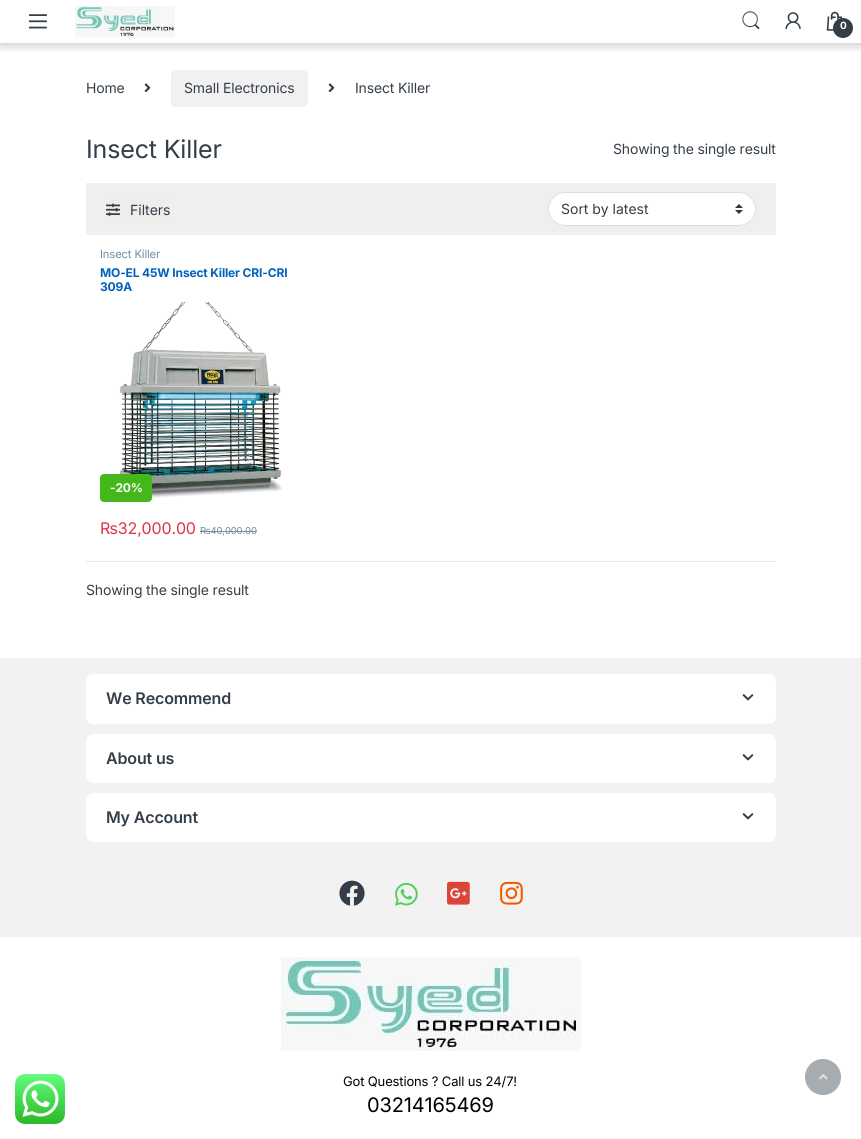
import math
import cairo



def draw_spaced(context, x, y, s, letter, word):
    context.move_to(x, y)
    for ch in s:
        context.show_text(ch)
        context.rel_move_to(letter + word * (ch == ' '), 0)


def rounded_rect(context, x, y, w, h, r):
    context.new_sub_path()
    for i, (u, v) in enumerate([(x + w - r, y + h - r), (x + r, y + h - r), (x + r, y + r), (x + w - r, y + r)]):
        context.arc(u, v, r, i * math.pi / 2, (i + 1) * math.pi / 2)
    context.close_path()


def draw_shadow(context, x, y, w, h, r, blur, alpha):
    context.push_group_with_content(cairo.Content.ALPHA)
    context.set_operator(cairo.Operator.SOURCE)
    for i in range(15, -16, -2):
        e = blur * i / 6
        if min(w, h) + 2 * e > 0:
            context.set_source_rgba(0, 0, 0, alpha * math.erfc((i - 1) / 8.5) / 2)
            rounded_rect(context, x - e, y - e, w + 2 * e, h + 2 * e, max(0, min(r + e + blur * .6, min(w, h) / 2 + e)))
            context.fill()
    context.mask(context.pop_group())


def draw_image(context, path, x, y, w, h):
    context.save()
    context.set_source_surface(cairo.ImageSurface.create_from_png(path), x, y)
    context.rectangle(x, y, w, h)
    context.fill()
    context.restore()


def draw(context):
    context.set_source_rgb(1, 1, 1)
    context.paint()
    context.save()
    context.rectangle(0, 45, 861, 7)
    context.clip()
    context.set_source_rgb(0, 0, 0)
    draw_shadow(context, 0, 4, 861, 45, 0, 3, 0.12)
    context.restore()
    context.set_source_rgb(221 / 255, 221 / 255, 221 / 255)
    context.rectangle(0, 43, 861, 2)
    context.fill()
    draw_image(context, "images/1.png", 29, 14, 18, 15)
    draw_image(context, "images/2.png", 75, 6, 100, 31)
    draw_image(context, "images/3.png", 742, 11, 18, 19)
    draw_image(context, "images/4.png", 785, 12, 16, 18)
    draw_image(context, "images/5.png", 826, 11, 17, 20)
    context.set_source_rgb(51 / 255, 62 / 255, 72 / 255)
    context.arc(843, 28, 10, 0, 2 * math.pi)
    context.fill()
    draw_image(context, "images/6.png", 144, 83, 7, 10)
    context.set_source_rgb(241 / 255, 241 / 255, 241 / 255)
    rounded_rect(context, 171, 70, 137, 37, 5)
    context.fill()
    draw_image(context, "images/6.png", 328, 83, 7, 10)
    context.set_source_rgb(239 / 255, 239 / 255, 239 / 255)
    context.rectangle(86, 183, 690, 52)
    context.fill()
    context.set_source_rgb(239 / 255, 236 / 255, 236 / 255)
    context.rectangle(106, 198, 64, 24)
    context.fill()
    draw_image(context, "images/7.png", 106, 203, 14, 13)
    context.set_source_rgb(1, 1, 1)
    rounded_rect(context, 548, 192, 208, 34, 17)
    context.fill()
    draw_image(context, "images/8.png", 735, 204, 8, 10)
    rounded_rect(context, 548.5, 192.5, 207, 33, 16.5)
    context.set_source_rgb(221 / 255, 221 / 255, 221 / 255)
    context.set_line_width(1)
    context.stroke()
    draw_image(context, "images/9.png", 119, 302, 163, 196)
    context.set_source_rgb(68 / 255, 184 / 255, 27 / 255)
    rounded_rect(context, 100, 474, 52, 28, 4)
    context.fill()
    context.set_source_rgb(118 / 255, 139 / 255, 158 / 255)
    context.rectangle(200, 531, 57, 1)
    context.fill()
    context.set_source_rgb(231 / 255, 231 / 255, 231 / 255)
    context.rectangle(86, 561, 690, 1)
    context.fill()
    context.set_source_rgb(242 / 255, 242 / 255, 242 / 255)
    context.rectangle(0, 658, 861, 279)
    context.fill()
    context.set_source_rgb(1, 1, 1)
    rounded_rect(context, 86, 674, 690, 50, 7)
    context.fill()
    draw_image(context, "images/10.png", 742, 694, 12, 7)
    rounded_rect(context, 86, 734, 690, 49, 7)
    context.fill()
    draw_image(context, "images/10.png", 742, 754, 12, 7)
    rounded_rect(context, 86, 793, 690, 49, 7)
    context.fill()
    draw_image(context, "images/10.png", 742, 813, 12, 7)
    draw_image(context, "images/11.png", 339, 880, 26, 26)
    draw_image(context, "images/12.png", 395, 882, 23, 24)
    draw_image(context, "images/13.png", 447, 881, 23, 24)
    draw_image(context, "images/14.png", 500, 881, 23, 24)
    draw_image(context, "images/15.png", 281, 957, 300, 94)
    draw_image(context, "images/16.png", 15, 1074, 50, 50)
    context.set_source_rgb(167 / 255, 172 / 255, 177 / 255)
    context.arc(823, 1077, 17.5, 0, 2 * math.pi)
    context.fill_preserve()
    context.stroke()
    draw_image(context, "images/17.png", 819, 1074, 9, 6)
    context.select_font_face("Inter", cairo.FontSlant.NORMAL, cairo.FontWeight.BOLD)
    context.set_font_size(10)
    context.set_source_rgb(1, 1, 1)
    draw_spaced(context, 840, 29, "0", -0.15, 0)
    context.select_font_face("Inter")
    context.set_font_size(14)
    context.set_source_rgb(51 / 255, 62 / 255, 72 / 255)
    draw_spaced(context, 86, 93, "Home", -0.15, 0)
    draw_spaced(context, 184, 93, "Small Electronics", -0.15, 0)
    draw_spaced(context, 355, 93, "Insect Killer", -0.15, 0)
    context.set_font_size(25)
    draw_spaced(context, 86, 158, "Insect Killer", -0.15, 0)
    context.set_font_size(14)
    draw_spaced(context, 613, 154, "Showing the single result", -0.15, 0)
    context.move_to(130, 215)
    context.show_text("Filters")
    context.move_to(561, 214)
    context.show_text("Sort by latest")
    context.set_font_size(11.25)
    context.set_source_rgb(118 / 255, 139 / 255, 158 / 255)
    draw_spaced(context, 100, 258, "Insect Killer", -0.15, 0)
    context.select_font_face("Inter", cairo.FontSlant.NORMAL, cairo.FontWeight.BOLD)
    context.set_font_size(12)
    context.set_source_rgb(0, 98 / 255, 189 / 255)
    draw_spaced(context, 100, 277, "MO-EL 45W Insect Killer CRI-CRI", -0.15, 0)
    draw_spaced(context, 100, 291, "309A", -0.15, 0)
    context.set_source_rgb(1, 1, 1)
    draw_spaced(context, 110, 492, "-20%", -0.15, 0)
    context.select_font_face("Inter")
    context.set_font_size(16)
    context.set_source_rgb(220 / 255, 53 / 255, 69 / 255)
    draw_spaced(context, 100, 534, "₨32,000.00", -0.15, 0)
    context.set_font_size(9.5)
    context.set_source_rgb(118 / 255, 139 / 255, 158 / 255)
    draw_spaced(context, 200, 534, "₨40,000.00", -0.15, 0)
    context.set_font_size(14)
    context.set_source_rgb(51 / 255, 62 / 255, 72 / 255)
    draw_spaced(context, 86, 595, "Showing the single result", -0.15, 0)
    context.select_font_face("Inter SemiBold")
    context.set_font_size(16)
    draw_spaced(context, 106, 704, "We Recommend", -0.15, 0)
    draw_spaced(context, 106, 764, "About us", -0.15, 0)
    draw_spaced(context, 106, 823, "My Account", -0.15, 0)
    context.select_font_face("Inter")
    context.set_font_size(13)
    context.set_source_rgb(0, 0, 0)
    draw_spaced(context, 343, 1086, "Got Questions ? Call us 24/7!", -0.15, 0)
    context.set_font_size(20)
    draw_spaced(context, 367, 1112, "03214165469", -0.15, 0)


surface = cairo.ImageSurface(cairo.Format.RGB24, 861, 1139)
context = cairo.Context(surface)
options = cairo.FontOptions()
options.set_hint_metrics(cairo.HintMetrics.OFF)
options.set_hint_style(cairo.HintStyle.NONE)
context.set_font_options(options)
context.set_miter_limit(4)
draw(context)
surface.write_to_png("out.png")
